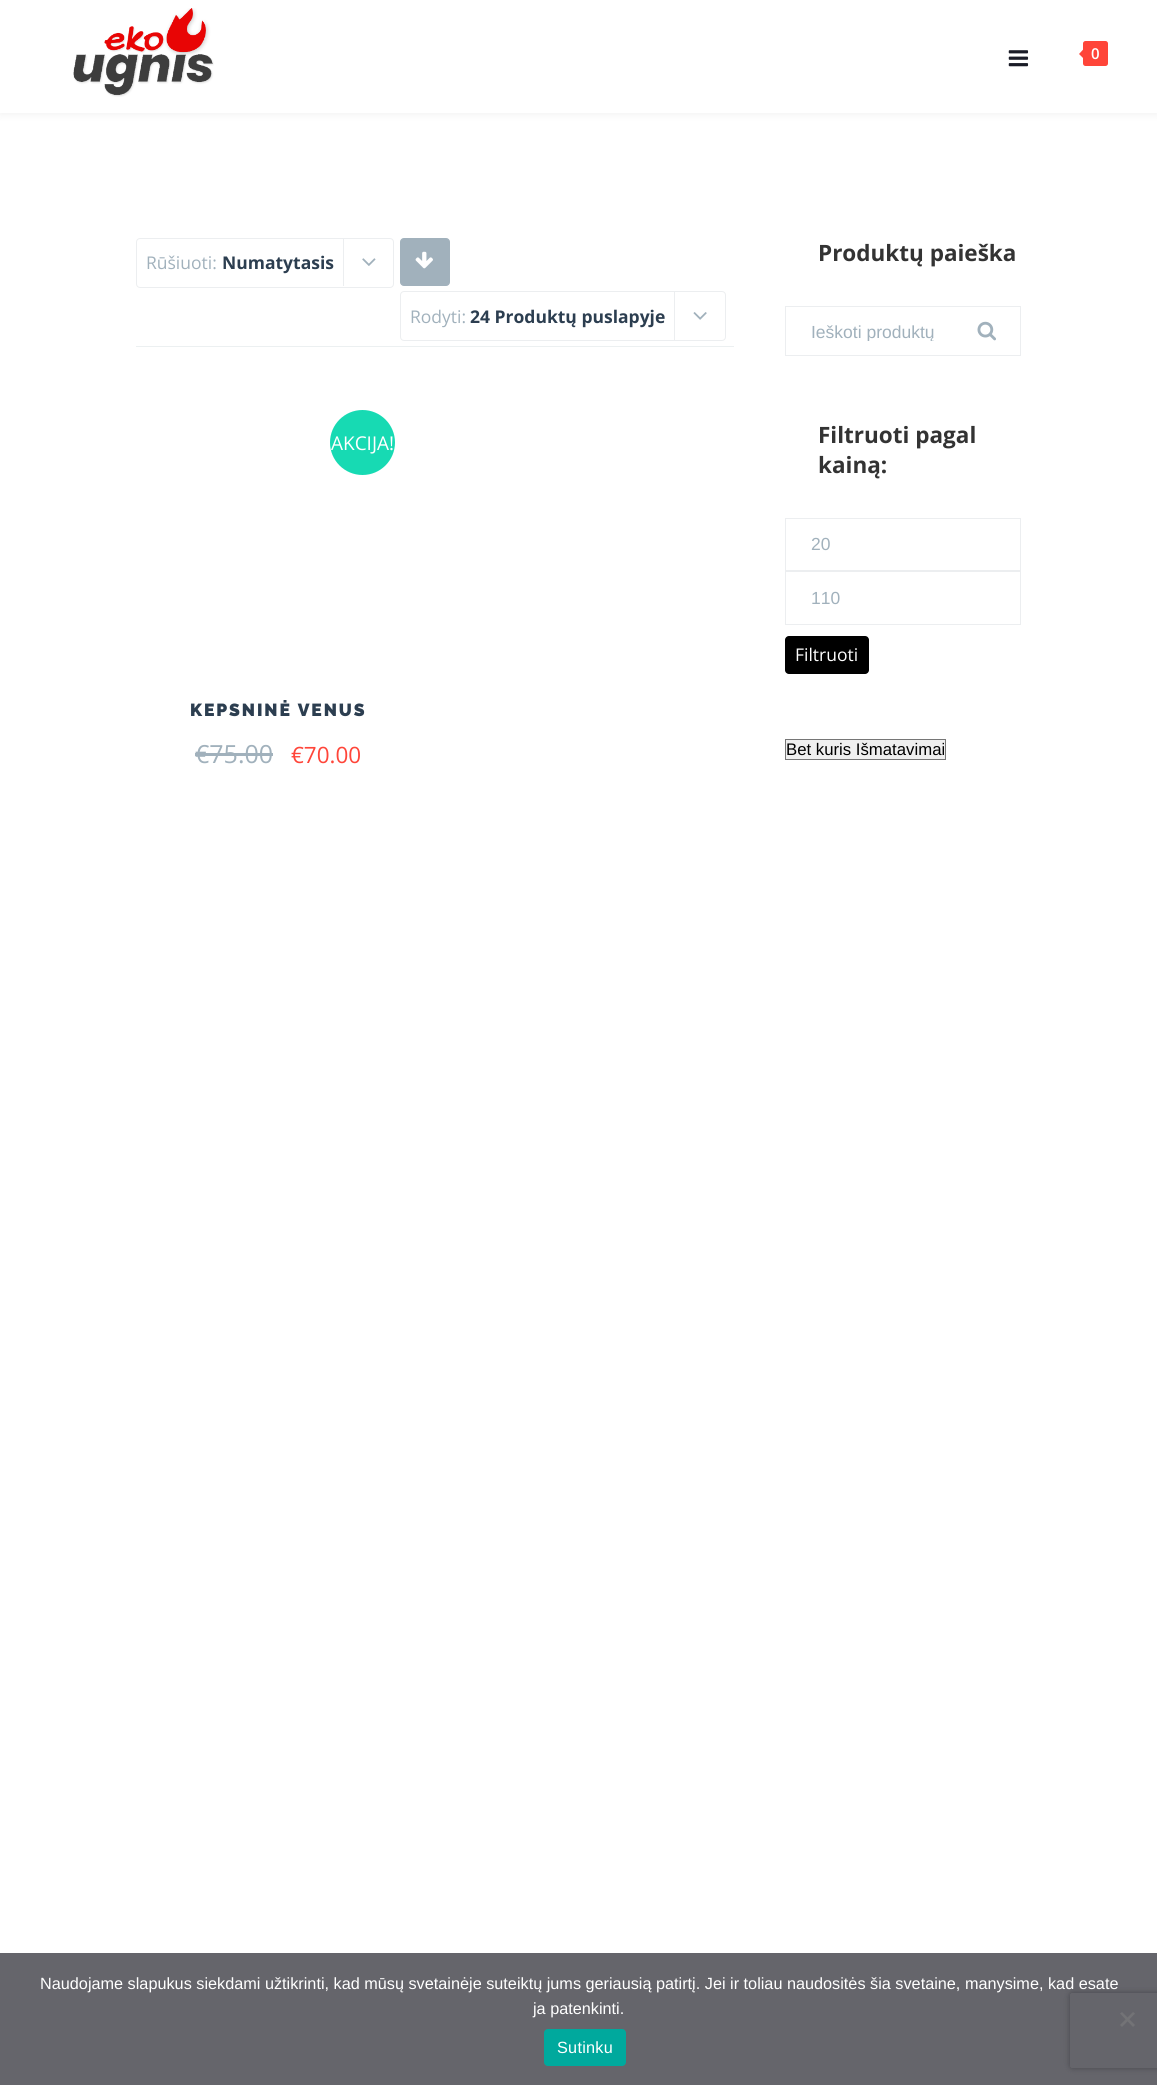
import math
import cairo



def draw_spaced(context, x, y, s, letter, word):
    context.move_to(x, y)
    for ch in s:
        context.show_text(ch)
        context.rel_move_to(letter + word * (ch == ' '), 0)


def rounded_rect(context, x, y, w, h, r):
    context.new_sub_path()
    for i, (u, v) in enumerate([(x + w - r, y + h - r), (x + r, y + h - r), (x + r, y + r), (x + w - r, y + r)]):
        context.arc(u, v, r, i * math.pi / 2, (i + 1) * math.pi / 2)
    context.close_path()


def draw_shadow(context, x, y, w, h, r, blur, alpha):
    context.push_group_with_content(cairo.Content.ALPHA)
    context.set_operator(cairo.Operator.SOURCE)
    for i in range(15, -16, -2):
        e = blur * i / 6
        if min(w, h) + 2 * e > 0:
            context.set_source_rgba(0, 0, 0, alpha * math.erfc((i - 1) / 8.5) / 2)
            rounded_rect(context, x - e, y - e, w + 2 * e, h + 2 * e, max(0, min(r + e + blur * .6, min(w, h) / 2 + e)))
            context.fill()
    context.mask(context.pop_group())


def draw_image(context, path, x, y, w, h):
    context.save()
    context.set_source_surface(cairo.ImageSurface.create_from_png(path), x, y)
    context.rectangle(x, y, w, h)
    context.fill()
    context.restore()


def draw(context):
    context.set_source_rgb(1, 1, 1)
    context.paint()
    context.set_source_rgb(101 / 255, 101 / 255, 107 / 255)
    context.rectangle(0, 1953, 1157, 132)
    context.fill()
    context.set_source_rgb(0, 0, 0)
    draw_shadow(context, 0, 3, 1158, 112, 0, 4, 0.05)
    context.set_source_rgb(1, 1, 1)
    context.rectangle(0, 0, 1157, 113)
    context.fill()
    draw_image(context, "images/1.png", 73, 8, 141, 89)
    draw_image(context, "images/2.png", 1008, 50, 21, 17)
    context.set_source_rgb(1, 69 / 255, 57 / 255)
    rounded_rect(context, 1083, 41, 25, 25, 2.5)
    context.fill()
    context.new_path()
    context.move_to(1085, 47.5)
    context.line_to(1085, 60)
    context.line_to(1079, 54)
    context.close_path()
    context.fill()
    context.set_source_rgb(236 / 255, 240 / 255, 241 / 255)
    context.rectangle(136, 346, 598, 1)
    context.fill()
    rounded_rect(context, 136.5, 238.5, 257, 49, 3.5)
    context.set_source_rgb(236 / 255, 238 / 255, 240 / 255)
    context.set_line_width(1)
    context.stroke()
    context.rectangle(343, 238, 1, 48)
    context.fill()
    draw_image(context, "images/3.png", 362, 258, 14, 8)
    context.set_source_rgb(161 / 255, 177 / 255, 188 / 255)
    rounded_rect(context, 400.5, 238.5, 49, 47, 3.5)
    context.fill_preserve()
    context.stroke()
    draw_image(context, "images/4.png", 415, 251, 18, 18)
    rounded_rect(context, 400.5, 291.5, 325, 49, 3.5)
    context.set_source_rgb(236 / 255, 238 / 255, 240 / 255)
    context.stroke()
    context.rectangle(674, 291, 1, 49)
    context.fill()
    draw_image(context, "images/5.png", 693, 312, 14, 8)
    context.set_source_rgb(23 / 255, 218 / 255, 179 / 255)
    context.arc(362.5, 442.5, 35.5, 0, 2 * math.pi)
    context.fill_preserve()
    context.set_source_rgb(1, 1, 1)
    context.set_line_width(6)
    context.stroke()
    context.set_source_rgb(161 / 255, 177 / 255, 188 / 255)
    context.rectangle(195, 753, 78, 3)
    context.fill()
    context.rectangle(785.5, 306.5, 235, 49)
    context.set_source_rgb(236 / 255, 238 / 255, 240 / 255)
    context.set_line_width(1)
    context.stroke()
    draw_image(context, "images/6.png", 977, 321, 19, 20)
    context.rectangle(785.5, 518.5, 235, 52)
    context.stroke()
    context.rectangle(785.5, 571.5, 235, 53)
    context.stroke()
    context.set_source_rgb(0, 0, 0)
    rounded_rect(context, 785, 636, 84, 38, 4)
    context.fill()
    context.set_source_rgb(239 / 255, 239 / 255, 239 / 255)
    context.rectangle(785.5, 739.5, 160, 20)
    context.fill_preserve()
    context.set_source_rgb(118 / 255, 118 / 255, 118 / 255)
    context.stroke()
    context.save()
    context.set_fill_rule(cairo.FillRule.EVEN_ODD)
    context.new_path()
    context.move_to(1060, 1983)
    context.line_to(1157, 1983)
    context.line_to(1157, 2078)
    context.line_to(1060, 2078)
    context.close_path()
    context.move_to(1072.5, 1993)
    context.line_to(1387.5, 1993)
    context.curve_to(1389, 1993, 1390, 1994, 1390, 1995.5)
    context.line_to(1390, 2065.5)
    context.curve_to(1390, 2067, 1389, 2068, 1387.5, 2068)
    context.line_to(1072.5, 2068)
    context.curve_to(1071, 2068, 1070, 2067, 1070, 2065.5)
    context.line_to(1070, 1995.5)
    context.curve_to(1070, 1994, 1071, 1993, 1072.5, 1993)
    context.close_path()
    context.clip()
    context.set_source_rgb(70 / 255, 70 / 255, 76 / 255)
    draw_shadow(context, 1070, 1993, 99, 75, 2.5, 3, 1)
    context.restore()
    context.set_source_rgb(115 / 255, 115 / 255, 118 / 255)
    context.new_path()
    context.move_to(1133, 2012)
    context.line_to(1135, 2013.5)
    context.line_to(1122, 2027)
    context.line_to(1120, 2025)
    context.close_path()
    context.fill()
    context.new_path()
    context.move_to(1120, 2013.5)
    context.line_to(1122, 2012)
    context.line_to(1135, 2025)
    context.line_to(1133, 2027)
    context.close_path()
    context.fill()
    context.set_source_rgb(0, 169 / 255, 157 / 255)
    rounded_rect(context, 544, 2029, 82, 37, 4)
    context.fill()
    context.select_font_face("Open Sans SemiBold")
    context.set_font_size(15)
    context.set_source_rgb(1, 1, 1)
    context.move_to(1091, 59)
    context.show_text("0")
    context.select_font_face("Open Sans")
    context.set_font_size(17.5)
    context.set_source_rgb(161 / 255, 177 / 255, 188 / 255)
    context.move_to(146, 269)
    context.show_text("Rūšiuoti:")
    context.select_font_face("Open Sans", cairo.FontSlant.NORMAL, cairo.FontWeight.BOLD)
    context.set_source_rgb(44 / 255, 62 / 255, 80 / 255)
    context.move_to(222, 269)
    context.show_text("Numatytasis")
    context.select_font_face("Open Sans")
    context.set_source_rgb(161 / 255, 177 / 255, 188 / 255)
    context.move_to(410, 323)
    context.show_text("Rodyti:")
    context.select_font_face("Open Sans", cairo.FontSlant.NORMAL, cairo.FontWeight.BOLD)
    context.set_source_rgb(44 / 255, 62 / 255, 80 / 255)
    context.move_to(470, 323)
    context.show_text("24 Produktų puslapyje")
    context.select_font_face("Open Sans")
    context.set_font_size(19)
    context.set_source_rgb(1, 1, 1)
    context.move_to(331, 450)
    context.show_text("AKCIJA!")
    context.select_font_face("Raleway Thin")
    context.set_font_size(17.5)
    context.set_source_rgb(44 / 255, 62 / 255, 80 / 255)
    draw_spaced(context, 190, 716, "KEPSNINĖ VENUS", 1.9, 0)
    context.select_font_face("Open Sans")
    context.set_font_size(25)
    context.set_source_rgb(161 / 255, 177 / 255, 188 / 255)
    context.move_to(195, 763)
    context.show_text("€75.00")
    context.set_font_size(22.5)
    context.set_source_rgb(1, 69 / 255, 57 / 255)
    context.move_to(291, 763)
    context.show_text("€70.00")
    context.select_font_face("Open Sans", cairo.FontSlant.NORMAL, cairo.FontWeight.BOLD)
    context.set_source_rgb(51 / 255, 51 / 255, 51 / 255)
    context.move_to(818, 261)
    context.show_text("Produktų paieška")
    context.save()
    context.rectangle(811, 321, 147, 20)
    context.clip()
    context.select_font_face("Liberation Sans")
    context.set_font_size(17.5)
    context.set_source_rgb(161 / 255, 177 / 255, 188 / 255)
    context.move_to(811, 338)
    context.show_text("Ieškoti produktų")
    context.restore()
    context.move_to(818, 443)
    context.show_text("Filtruoti pagal")
    context.move_to(818, 473)
    context.show_text("kainą:")
    context.select_font_face("Liberation Sans")
    context.set_font_size(17.5)
    context.set_source_rgb(161 / 255, 177 / 255, 188 / 255)
    context.move_to(811, 550)
    context.show_text("20")
    context.move_to(811, 604)
    context.show_text("110")
    context.select_font_face("Open Sans")
    context.set_source_rgb(1, 1, 1)
    context.move_to(795, 661)
    context.show_text("Filtruoti")
    context.select_font_face("Liberation Sans")
    context.set_font_size(16.75)
    context.set_source_rgb(0, 0, 0)
    context.move_to(786, 755)
    context.show_text("Bet kuris Išmatavimai")
    context.set_font_size(16.25)
    context.set_source_rgb(1, 1, 1)
    context.move_to(40, 1989)
    context.show_text("Naudojame slapukus siekdami užtikrinti, kad mūsų svetainėje suteiktų jums geriausią patirtį. Jei ir toliau naudositės šia svetaine, manysime, kad esate")
    context.move_to(533, 2014)
    context.show_text("ja patenkinti.")
    draw_spaced(context, 557, 2053, "Sutinku", 0.25, 0)


surface = cairo.ImageSurface(cairo.Format.RGB24, 1157, 2085)
context = cairo.Context(surface)
options = cairo.FontOptions()
options.set_hint_metrics(cairo.HintMetrics.OFF)
options.set_hint_style(cairo.HintStyle.NONE)
context.set_font_options(options)
context.set_miter_limit(4)
draw(context)
surface.write_to_png("out.png")
